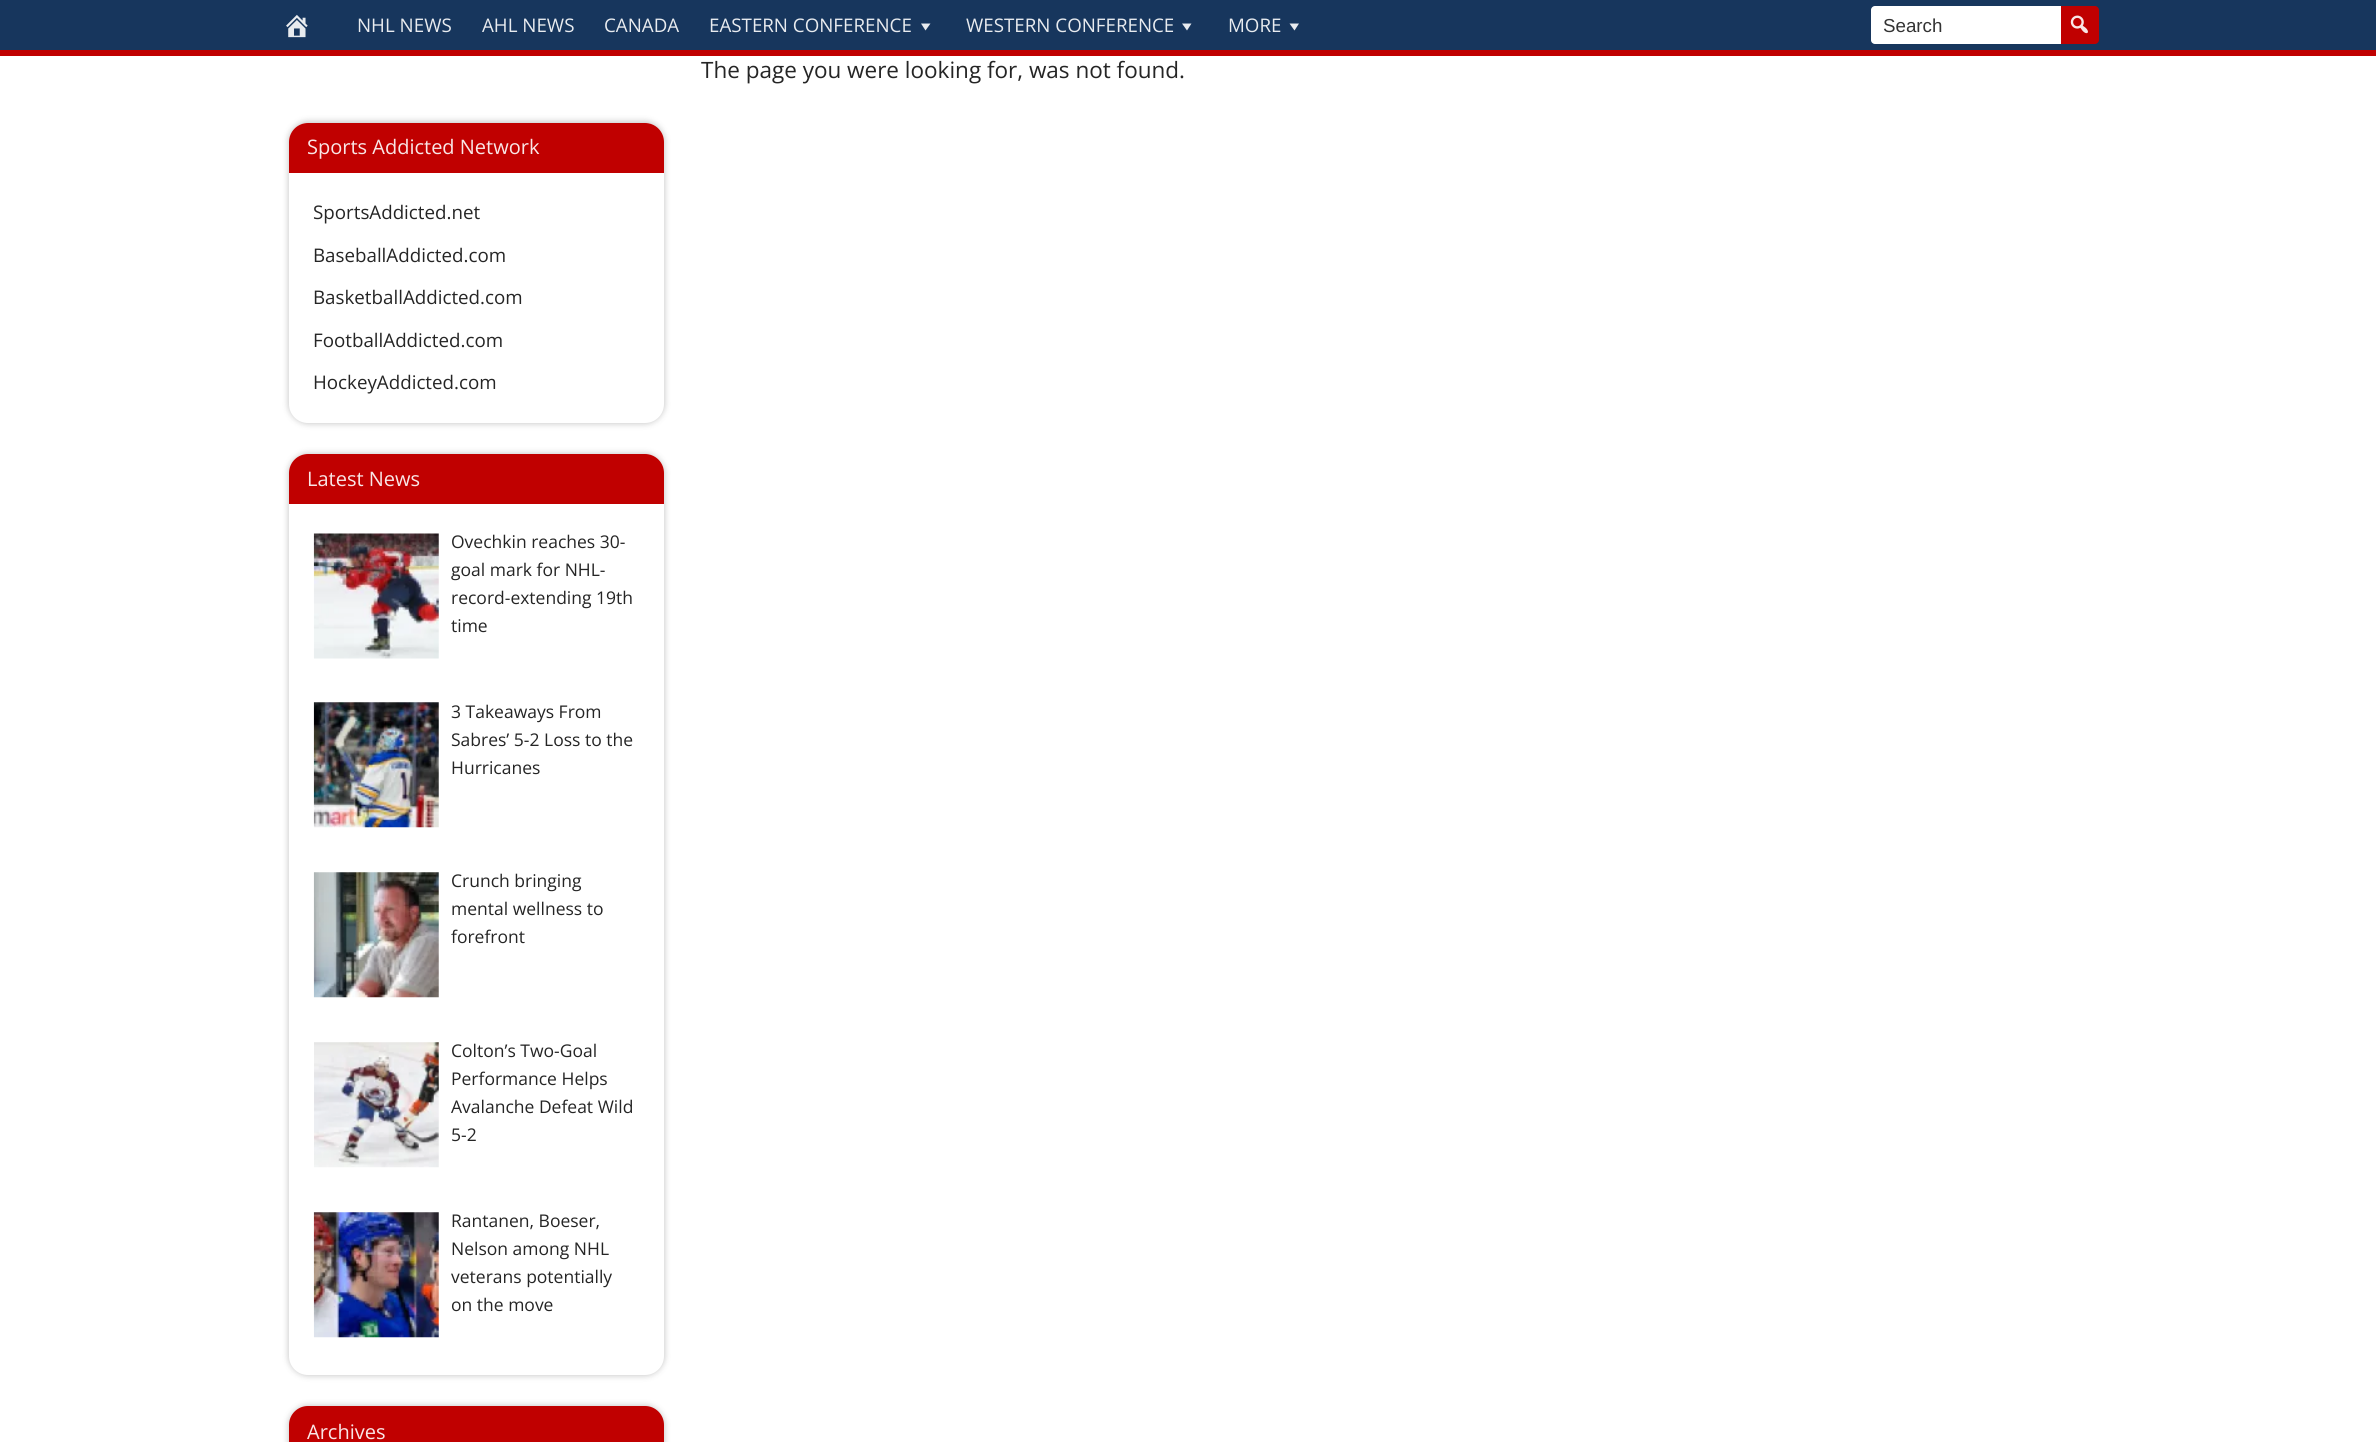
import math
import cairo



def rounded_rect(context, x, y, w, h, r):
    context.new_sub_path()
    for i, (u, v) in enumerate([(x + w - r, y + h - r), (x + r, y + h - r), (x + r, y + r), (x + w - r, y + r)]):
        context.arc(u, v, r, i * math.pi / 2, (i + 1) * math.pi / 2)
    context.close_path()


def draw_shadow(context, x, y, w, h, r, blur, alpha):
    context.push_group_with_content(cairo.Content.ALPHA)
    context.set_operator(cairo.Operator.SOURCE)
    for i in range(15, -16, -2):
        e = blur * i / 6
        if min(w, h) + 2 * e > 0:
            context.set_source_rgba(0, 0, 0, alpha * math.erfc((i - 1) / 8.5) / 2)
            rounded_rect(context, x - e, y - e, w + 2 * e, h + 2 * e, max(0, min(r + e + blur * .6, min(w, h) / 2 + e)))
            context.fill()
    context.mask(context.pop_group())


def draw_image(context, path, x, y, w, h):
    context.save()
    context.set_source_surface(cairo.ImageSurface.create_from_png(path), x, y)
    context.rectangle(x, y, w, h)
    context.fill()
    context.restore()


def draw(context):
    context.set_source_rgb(1, 1, 1)
    context.paint()
    context.set_source_rgb(23 / 255, 54 / 255, 93 / 255)
    context.rectangle(0, 0, 2376, 50)
    context.fill()
    context.set_source_rgb(192 / 255, 0, 0)
    context.rectangle(0, 50, 2376, 6)
    context.fill()
    draw_image(context, "images/1.png", 286, 14, 22, 24)
    context.set_source_rgb(232 / 255, 235 / 255, 239 / 255)
    context.new_path()
    context.move_to(930.5, 23.5)
    context.line_to(925.5, 30.5)
    context.line_to(921, 23.5)
    context.close_path()
    context.fill()
    context.new_path()
    context.move_to(1191.5, 23.5)
    context.line_to(1187, 30.5)
    context.line_to(1182, 23.5)
    context.close_path()
    context.fill()
    context.new_path()
    context.move_to(1299, 23.5)
    context.line_to(1294.5, 30.5)
    context.line_to(1289.5, 23.5)
    context.close_path()
    context.fill()
    context.set_source_rgb(1, 1, 1)
    rounded_rect(context, 1871, 6, 225, 38, 4)
    context.fill()
    context.set_source_rgb(192 / 255, 0, 0)
    context.new_path()
    context.move_to(2061, 6)
    context.line_to(2095, 6)
    context.curve_to(2097, 6, 2099, 8, 2099, 10)
    context.line_to(2099, 40)
    context.curve_to(2099, 42, 2097, 44, 2095, 44)
    context.line_to(2061, 44)
    context.close_path()
    context.fill()
    draw_image(context, "images/2.png", 2070, 15, 18, 19)
    context.set_source_rgb(0, 0, 0)
    draw_shadow(context, 288, 121, 377, 303, 20, 3, 0.2)
    context.set_source_rgb(1, 1, 1)
    rounded_rect(context, 289, 123, 375, 300, 19)
    context.fill()
    context.set_source_rgb(192 / 255, 0, 0)
    context.new_path()
    context.move_to(308, 123)
    context.line_to(645, 123)
    context.curve_to(655.5, 123, 664, 131.5, 664, 142)
    context.line_to(664, 173)
    context.line_to(289, 173)
    context.line_to(289, 142)
    context.curve_to(289, 131.5, 297.5, 123, 308, 123)
    context.close_path()
    context.fill()
    context.set_source_rgb(0, 0, 0)
    draw_shadow(context, 288, 453, 377, 923, 20, 3, 0.2)
    context.set_source_rgb(1, 1, 1)
    rounded_rect(context, 289, 454, 375, 921, 19)
    context.fill()
    context.set_source_rgb(192 / 255, 0, 0)
    context.new_path()
    context.move_to(308, 454)
    context.line_to(645, 454)
    context.curve_to(655.5, 454, 664, 462.5, 664, 473)
    context.line_to(664, 504)
    context.line_to(289, 504)
    context.line_to(289, 473)
    context.curve_to(289, 462.5, 297.5, 454, 308, 454)
    context.close_path()
    context.fill()
    draw_image(context, "images/3.png", 313, 533, 126, 126)
    draw_image(context, "images/4.png", 313, 702, 126, 126)
    draw_image(context, "images/5.png", 313, 872, 126, 126)
    draw_image(context, "images/6.png", 314, 1042, 125, 126)
    draw_image(context, "images/7.png", 313, 1212, 126, 126)
    context.set_source_rgb(0, 0, 0)
    draw_shadow(context, 288, 1405, 377, 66, 20, 3, 0.2)
    context.set_source_rgb(192 / 255, 0, 0)
    context.new_path()
    context.move_to(308, 1406)
    context.line_to(645, 1406)
    context.curve_to(655.5, 1406, 664, 1414.5, 664, 1425)
    context.line_to(664, 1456)
    context.line_to(289, 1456)
    context.line_to(289, 1425)
    context.curve_to(289, 1414.5, 297.5, 1406, 308, 1406)
    context.close_path()
    context.fill()
    context.select_font_face("Open Sans")
    context.set_font_size(18.75)
    context.set_source_rgb(232 / 255, 235 / 255, 239 / 255)
    context.move_to(357, 32)
    context.show_text("NHL NEWS")
    context.move_to(482, 32)
    context.show_text("AHL NEWS")
    context.move_to(604, 32)
    context.show_text("CANADA")
    context.move_to(709, 32)
    context.show_text("EASTERN CONFERENCE")
    context.move_to(966, 32)
    context.show_text("WESTERN CONFERENCE")
    context.move_to(1228, 32)
    context.show_text("MORE")
    context.select_font_face("Liberation Sans")
    context.set_source_rgb(51 / 255, 51 / 255, 51 / 255)
    context.move_to(1883, 32)
    context.show_text("Search")
    context.select_font_face("Open Sans")
    context.set_font_size(22.5)
    context.set_source_rgb(37 / 255, 37 / 255, 37 / 255)
    context.move_to(701, 78)
    context.show_text("The page you were looking for, was not found.")
    context.set_font_size(20)
    context.set_source_rgb(249 / 255, 230 / 255, 230 / 255)
    context.move_to(307, 154)
    context.show_text("Sports Addicted Network")
    context.set_font_size(18.75)
    context.set_source_rgb(37 / 255, 37 / 255, 37 / 255)
    context.move_to(313, 219)
    context.show_text("SportsAddicted.net")
    context.move_to(313, 262)
    context.show_text("BaseballAddicted.com")
    context.move_to(313, 304)
    context.show_text("BasketballAddicted.com")
    context.move_to(313, 347)
    context.show_text("FootballAddicted.com")
    context.move_to(313, 389)
    context.show_text("HockeyAddicted.com")
    context.set_font_size(20)
    context.set_source_rgb(249 / 255, 230 / 255, 230 / 255)
    context.move_to(307, 486)
    context.show_text("Latest News")
    context.set_font_size(17.5)
    context.set_source_rgb(37 / 255, 37 / 255, 37 / 255)
    context.move_to(451, 548)
    context.show_text("Ovechkin reaches 30-")
    context.move_to(451, 576)
    context.show_text("goal mark for NHL-")
    context.move_to(451, 604)
    context.show_text("record-extending 19th")
    context.move_to(451, 632)
    context.show_text("time")
    context.move_to(451, 718)
    context.show_text("3 Takeaways From")
    context.move_to(451, 746)
    context.show_text("Sabres’ 5-2 Loss to the")
    context.move_to(451, 774)
    context.show_text("Hurricanes")
    context.move_to(451, 887)
    context.show_text("Crunch bringing")
    context.move_to(451, 915)
    context.show_text("mental wellness to")
    context.move_to(451, 943)
    context.show_text("forefront")
    context.move_to(451, 1057)
    context.show_text("Colton’s Two-Goal")
    context.move_to(451, 1085)
    context.show_text("Performance Helps")
    context.move_to(451, 1113)
    context.show_text("Avalanche Defeat Wild")
    context.move_to(451, 1141)
    context.show_text("5-2")
    context.move_to(451, 1227)
    context.show_text("Rantanen, Boeser,")
    context.move_to(451, 1255)
    context.show_text("Nelson among NHL")
    context.move_to(451, 1283)
    context.show_text("veterans potentially")
    context.move_to(451, 1311)
    context.show_text("on the move")
    context.set_font_size(20)
    context.set_source_rgb(249 / 255, 230 / 255, 230 / 255)
    context.move_to(307, 1439)
    context.show_text("Archives")


surface = cairo.ImageSurface(cairo.Format.RGB24, 2376, 1442)
context = cairo.Context(surface)
options = cairo.FontOptions()
options.set_hint_metrics(cairo.HintMetrics.OFF)
options.set_hint_style(cairo.HintStyle.NONE)
context.set_font_options(options)
context.set_miter_limit(4)
draw(context)
surface.write_to_png("out.png")
